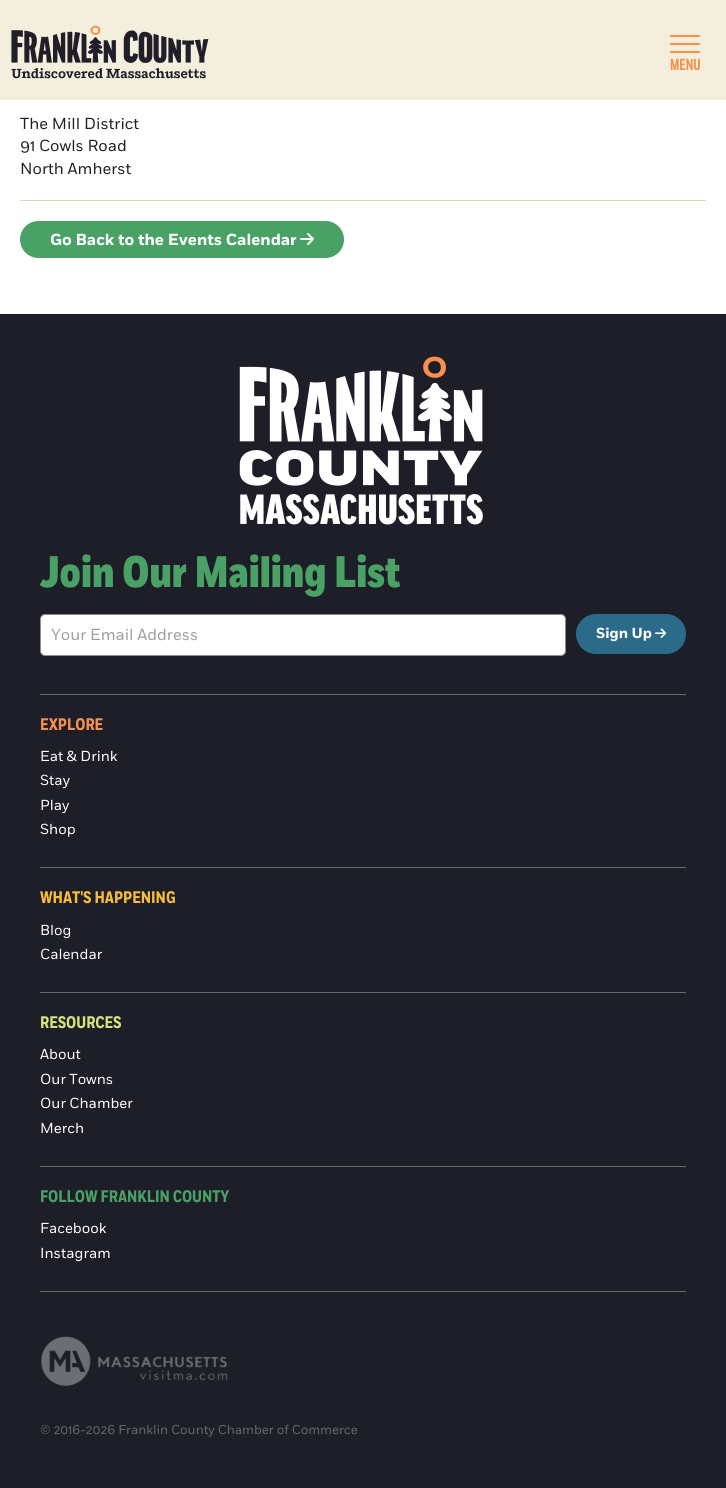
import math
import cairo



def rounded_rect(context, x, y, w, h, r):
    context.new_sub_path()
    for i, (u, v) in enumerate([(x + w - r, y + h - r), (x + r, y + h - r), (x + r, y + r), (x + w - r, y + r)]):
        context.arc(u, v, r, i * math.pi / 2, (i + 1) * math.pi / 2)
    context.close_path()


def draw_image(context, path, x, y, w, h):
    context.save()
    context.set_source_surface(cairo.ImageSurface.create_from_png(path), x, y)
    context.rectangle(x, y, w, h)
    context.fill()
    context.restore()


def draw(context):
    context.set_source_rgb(1, 1, 1)
    context.paint()
    context.set_source_rgb(244 / 255, 239 / 255, 220 / 255)
    context.rectangle(0, 0, 726, 100)
    context.fill()
    draw_image(context, "images/1.png", 11, 25, 198, 54)
    context.set_source_rgb(247 / 255, 145 / 255, 78 / 255)
    context.rectangle(670, 35, 30, 2)
    context.fill()
    context.rectangle(670, 43, 30, 2)
    context.fill()
    context.rectangle(670, 51, 30, 2)
    context.fill()
    context.set_source_rgb(226 / 255, 212 / 255, 176 / 255)
    context.rectangle(20, 200, 686, 1)
    context.fill()
    context.set_source_rgb(73 / 255, 161 / 255, 102 / 255)
    rounded_rect(context, 20, 221, 324, 37, 18.5)
    context.fill()
    draw_image(context, "images/2.png", 300, 233, 14, 12)
    context.set_source_rgb(30 / 255, 30 / 255, 41 / 255)
    context.rectangle(0, 314, 726, 1174)
    context.fill()
    draw_image(context, "images/3.png", 239, 356, 244, 169)
    context.set_source_rgb(1, 1, 1)
    rounded_rect(context, 40.5, 614.5, 525, 41, 4.5)
    context.fill_preserve()
    context.set_source_rgb(142 / 255, 140 / 255, 131 / 255)
    context.set_line_width(1)
    context.stroke()
    context.set_source_rgb(44 / 255, 106 / 255, 138 / 255)
    rounded_rect(context, 576, 614, 110, 40, 20)
    context.fill()
    draw_image(context, "images/4.png", 655, 628, 12, 10)
    context.set_source_rgb(101 / 255, 104 / 255, 108 / 255)
    context.rectangle(40, 694, 646, 1)
    context.fill()
    context.rectangle(40, 867, 646, 1)
    context.fill()
    context.rectangle(40, 992, 646, 1)
    context.fill()
    context.rectangle(40, 1166, 646, 1)
    context.fill()
    context.rectangle(40, 1291, 646, 1)
    context.fill()
    draw_image(context, "images/5.png", 41, 1336, 187, 50)
    context.select_font_face("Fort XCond", cairo.FontSlant.NORMAL, cairo.FontWeight.BOLD)
    context.set_font_size(16)
    context.set_source_rgb(247 / 255, 145 / 255, 78 / 255)
    context.move_to(670, 70)
    context.show_text("MENU")
    context.select_font_face("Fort")
    context.set_source_rgb(30 / 255, 30 / 255, 41 / 255)
    context.move_to(20, 129)
    context.show_text("The Mill District")
    context.move_to(20, 151)
    context.show_text("91 Cowls Road")
    context.move_to(20, 174)
    context.show_text("North Amherst")
    context.select_font_face("Fort", cairo.FontSlant.NORMAL, cairo.FontWeight.BOLD)
    context.set_source_rgb(1, 1, 1)
    context.move_to(50, 245)
    context.show_text("Go Back to the Events Calendar")
    context.select_font_face("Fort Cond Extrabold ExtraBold")
    context.set_font_size(44)
    context.set_source_rgb(73 / 255, 161 / 255, 102 / 255)
    context.move_to(40, 587)
    context.show_text("Join Our Mailing List")
    context.select_font_face("Fort")
    context.set_font_size(16)
    context.set_source_rgb(158 / 255, 158 / 255, 158 / 255)
    context.move_to(51, 640)
    context.show_text("Your Email Address")
    context.select_font_face("Fort", cairo.FontSlant.NORMAL, cairo.FontWeight.BOLD)
    context.set_font_size(14.5)
    context.set_source_rgb(1, 1, 1)
    context.move_to(596, 638)
    context.show_text("Sign Up")
    context.select_font_face("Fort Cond", cairo.FontSlant.NORMAL, cairo.FontWeight.BOLD)
    context.set_font_size(16.75)
    context.set_source_rgb(247 / 255, 145 / 255, 78 / 255)
    context.move_to(40, 730)
    context.show_text("EXPLORE")
    context.select_font_face("Fort")
    context.set_font_size(14.5)
    context.set_source_rgb(1, 1, 1)
    context.move_to(40, 761)
    context.show_text("Eat & Drink")
    context.move_to(40, 785)
    context.show_text("Stay")
    context.move_to(40, 810)
    context.show_text("Play")
    context.move_to(40, 834)
    context.show_text("Shop")
    context.select_font_face("Fort Cond", cairo.FontSlant.NORMAL, cairo.FontWeight.BOLD)
    context.set_font_size(16.75)
    context.set_source_rgb(246 / 255, 188 / 255, 59 / 255)
    context.move_to(40, 903)
    context.show_text("WHAT'S HAPPENING")
    context.select_font_face("Fort")
    context.set_font_size(14.5)
    context.set_source_rgb(1, 1, 1)
    context.move_to(40, 935)
    context.show_text("Blog")
    context.move_to(40, 959)
    context.show_text("Calendar")
    context.select_font_face("Fort Cond", cairo.FontSlant.NORMAL, cairo.FontWeight.BOLD)
    context.set_font_size(16.75)
    context.set_source_rgb(214 / 255, 227 / 255, 120 / 255)
    context.move_to(40, 1028)
    context.show_text("RESOURCES")
    context.select_font_face("Fort")
    context.set_font_size(14.5)
    context.set_source_rgb(1, 1, 1)
    context.move_to(40, 1059)
    context.show_text("About")
    context.move_to(40, 1084)
    context.show_text("Our Towns")
    context.move_to(40, 1108)
    context.show_text("Our Chamber")
    context.move_to(40, 1133)
    context.show_text("Merch")
    context.select_font_face("Fort Cond", cairo.FontSlant.NORMAL, cairo.FontWeight.BOLD)
    context.set_font_size(16.75)
    context.set_source_rgb(73 / 255, 161 / 255, 102 / 255)
    context.move_to(40, 1202)
    context.show_text("FOLLOW FRANKLIN COUNTY")
    context.select_font_face("Fort")
    context.set_font_size(14.5)
    context.set_source_rgb(1, 1, 1)
    context.move_to(40, 1233)
    context.show_text("Facebook")
    context.move_to(40, 1258)
    context.show_text("Instagram")
    context.set_font_size(12.8)
    context.set_source_rgb(101 / 255, 104 / 255, 108 / 255)
    context.move_to(40, 1434)
    context.show_text("© 2016-2026 Franklin County Chamber of Commerce")


surface = cairo.ImageSurface(cairo.Format.RGB24, 726, 1488)
context = cairo.Context(surface)
options = cairo.FontOptions()
options.set_hint_metrics(cairo.HintMetrics.OFF)
options.set_hint_style(cairo.HintStyle.NONE)
context.set_font_options(options)
context.set_miter_limit(4)
draw(context)
surface.write_to_png("out.png")
